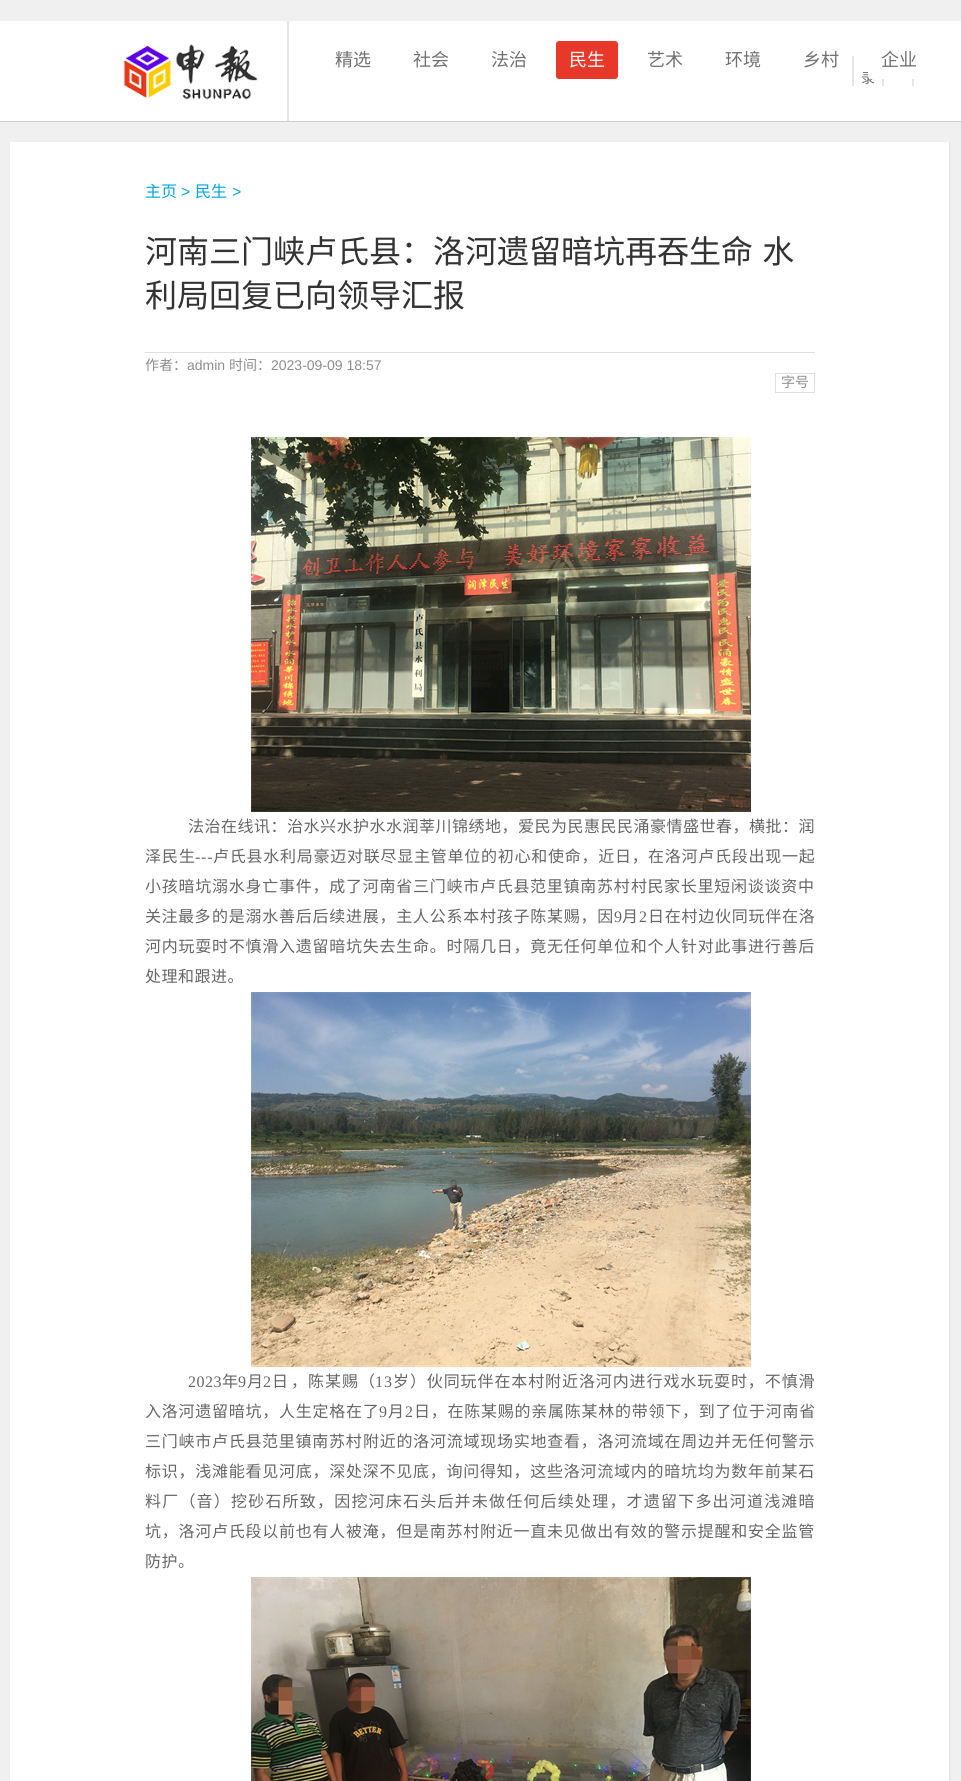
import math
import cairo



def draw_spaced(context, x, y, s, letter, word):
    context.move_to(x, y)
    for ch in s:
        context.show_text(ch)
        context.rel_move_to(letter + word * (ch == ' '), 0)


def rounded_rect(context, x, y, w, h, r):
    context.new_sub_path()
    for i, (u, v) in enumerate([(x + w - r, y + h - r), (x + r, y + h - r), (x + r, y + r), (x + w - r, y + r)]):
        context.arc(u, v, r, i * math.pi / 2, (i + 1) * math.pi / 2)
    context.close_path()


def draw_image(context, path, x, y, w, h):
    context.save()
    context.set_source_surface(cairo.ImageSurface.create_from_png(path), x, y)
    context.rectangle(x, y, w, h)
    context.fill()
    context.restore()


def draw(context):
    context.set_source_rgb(240 / 255, 240 / 255, 240 / 255)
    context.paint()
    context.set_source_rgb(1, 1, 1)
    context.rectangle(0, 21, 961, 100)
    context.fill()
    context.set_source_rgb(205 / 255, 205 / 255, 205 / 255)
    context.rectangle(0, 121, 961, 1)
    context.fill()
    context.set_source_rgb(229 / 255, 229 / 255, 229 / 255)
    context.rectangle(287, 21, 2, 100)
    context.fill()
    draw_image(context, "images/1.png", 123, 44, 135, 56)
    context.set_source_rgb(232 / 255, 56 / 255, 41 / 255)
    rounded_rect(context, 556, 41, 62, 38, 3)
    context.fill()
    context.set_source_rgb(229 / 255, 229 / 255, 229 / 255)
    context.rectangle(852, 56, 2, 30)
    context.fill()
    context.rectangle(882, 79, 2, 7)
    context.fill()
    context.rectangle(912, 79, 2, 7)
    context.fill()
    context.set_source_rgb(1, 1, 1)
    context.rectangle(10, 142, 939, 1639)
    context.fill()
    context.set_source_rgb(223 / 255, 223 / 255, 223 / 255)
    context.rectangle(949, 142, 1, 1639)
    context.fill()
    context.rectangle(145, 352, 670, 1)
    context.fill()
    context.rectangle(775.5, 373.5, 39, 19)
    context.set_line_width(1)
    context.stroke()
    draw_image(context, "images/2.png", 251, 437, 500, 375)
    draw_image(context, "images/3.png", 251, 992, 500, 375)
    draw_image(context, "images/4.png", 251, 1577, 500, 204)
    context.select_font_face("Noto Sans CJK SC")
    context.set_font_size(18)
    context.set_source_rgb(113 / 255, 113 / 255, 113 / 255)
    context.move_to(335, 66)
    context.show_text("精选")
    context.move_to(413, 66)
    context.show_text("社会")
    context.move_to(491, 66)
    context.show_text("法治")
    context.set_source_rgb(1, 1, 1)
    context.move_to(569, 66)
    context.show_text("民生")
    context.set_source_rgb(113 / 255, 113 / 255, 113 / 255)
    context.move_to(647, 66)
    context.show_text("艺术")
    context.move_to(725, 66)
    context.show_text("环境")
    context.move_to(803, 66)
    context.show_text("乡村")
    context.set_font_size(14)
    context.move_to(861, 83)
    context.show_text("录")
    context.set_source_rgb(1, 1, 1)
    rounded_rect(context, 868, 41, 62, 38, 3)
    context.fill()
    context.set_font_size(18)
    context.set_source_rgb(113 / 255, 113 / 255, 113 / 255)
    context.move_to(881, 66)
    context.show_text("企业")
    context.set_font_size(16)
    context.set_source_rgb(0, 164 / 255, 235 / 255)
    context.move_to(145, 197)
    context.show_text("主页")
    context.select_font_face("Liberation Sans")
    context.move_to(181, 197)
    context.show_text(">")
    context.select_font_face("Noto Sans CJK SC")
    context.move_to(195, 197)
    context.show_text("民生")
    context.select_font_face("Liberation Sans")
    context.move_to(232, 197)
    context.show_text(">")
    context.select_font_face("Noto Sans CJK SC")
    context.set_font_size(32)
    context.set_source_rgb(51 / 255, 51 / 255, 51 / 255)
    draw_spaced(context, 145, 263, "河南三门峡卢氏县：洛河遗留暗坑再吞生命 水", 0, 2)
    context.move_to(145, 307)
    context.show_text("利局回复已向领导汇报")
    context.set_font_size(14)
    context.set_source_rgb(142 / 255, 142 / 255, 142 / 255)
    context.move_to(145, 370)
    context.show_text("作者：")
    context.select_font_face("Liberation Sans")
    context.move_to(187, 370)
    context.show_text("admin")
    context.select_font_face("Noto Sans CJK SC")
    context.move_to(229, 370)
    context.show_text("时间：")
    context.select_font_face("Liberation Sans")
    context.move_to(271, 370)
    context.show_text("2023-09-09 18:57")
    context.select_font_face("Noto Sans CJK SC")
    context.move_to(781, 387)
    context.show_text("字号")
    context.set_font_size(16)
    context.set_source_rgb(102 / 255, 102 / 255, 102 / 255)
    draw_spaced(context, 188, 832, "法治在线讯：治水兴水护水水润莘川锦绣地，爱民为民惠民民涌豪情盛世春，横批：润", 0.5, 0)
    draw_spaced(context, 145, 862, "泽民生", 1, 0)
    context.select_font_face("Liberation Serif")
    draw_spaced(context, 195, 862, "---", 0.75, 0)
    context.select_font_face("Noto Sans CJK SC")
    draw_spaced(context, 213, 862, "卢氏县水利局豪迈对联尽显主管单位的初心和使命，近日，", 0.75, 0)
    draw_spaced(context, 648, 862, "在洛河卢氏段出现一起", 0.75, 0)
    draw_spaced(context, 145, 892, "小孩暗坑溺水身亡事件，成了河南省三门峡市卢氏县", 0.75, 0)
    draw_spaced(context, 530, 892, "范里镇南苏村", 0.75, 0)
    draw_spaced(context, 631, 892, "村民", 0.5, 0)
    draw_spaced(context, 664, 892, "家长里短闲谈谈资中", 0.75, 0)
    draw_spaced(context, 145, 922, "关注", 0.5, 0)
    draw_spaced(context, 178, 922, "最多", 0.5, 0)
    draw_spaced(context, 212, 922, "的是溺水善后后续进展，主人公系本村孩子陈某赐，因", 0.75, 0)
    context.select_font_face("Liberation Serif")
    draw_spaced(context, 614, 922, "9", 0.75, 0)
    context.select_font_face("Noto Sans CJK SC")
    draw_spaced(context, 622, 922, "月", 0.75, 0)
    context.select_font_face("Liberation Serif")
    draw_spaced(context, 639, 922, "2", 0.75, 0)
    context.select_font_face("Noto Sans CJK SC")
    draw_spaced(context, 648, 922, "日在村边伙同玩伴在洛", 0.75, 0)
    draw_spaced(context, 145, 952, "河内玩耍时不慎滑入遗留暗坑失去生命。时隔几日，竟无任何单位和个人针对此事进行善后", 0.75, 0)
    draw_spaced(context, 145, 982, "处理和跟进。", 0.5, 0)
    context.select_font_face("Liberation Serif")
    draw_spaced(context, 188, 1387, "2023", 0.5, 0)
    context.select_font_face("Noto Sans CJK SC")
    draw_spaced(context, 222, 1387, "年", 0.5, 0)
    context.select_font_face("Liberation Serif")
    draw_spaced(context, 238, 1387, "9", 0.5, 0)
    context.select_font_face("Noto Sans CJK SC")
    draw_spaced(context, 247, 1387, "月", 0.5, 0)
    context.select_font_face("Liberation Serif")
    draw_spaced(context, 263, 1387, "2", 0.5, 0)
    context.select_font_face("Noto Sans CJK SC")
    draw_spaced(context, 272, 1387, "日", 0.5, 0)
    draw_spaced(context, 291, 1387, "，陈某赐（", 1, 0)
    context.select_font_face("Liberation Serif")
    draw_spaced(context, 375, 1387, "13", 0.9, 0)
    context.select_font_face("Noto Sans CJK SC")
    draw_spaced(context, 393, 1387, "岁）伙同玩伴在本村附近洛河内进行戏水玩耍时，不慎滑", 0.9, 0)
    draw_spaced(context, 145, 1417, "入洛河遗留暗坑，人生定格在了", 0.75, 0)
    context.select_font_face("Liberation Serif")
    draw_spaced(context, 379, 1417, "9", 0.75, 0)
    context.select_font_face("Noto Sans CJK SC")
    draw_spaced(context, 388, 1417, "月", 0.75, 0)
    context.select_font_face("Liberation Serif")
    draw_spaced(context, 405, 1417, "2", 0.75, 0)
    context.select_font_face("Noto Sans CJK SC")
    draw_spaced(context, 414, 1417, "日，在陈某赐的亲属陈某林的带领下，到了位于河南省", 0.75, 0)
    draw_spaced(context, 145, 1447, "三门峡市卢氏县", 0.75, 0)
    draw_spaced(context, 262, 1447, "范里镇南苏村", 0.75, 0)
    draw_spaced(context, 363, 1447, "附近的洛河流域现场实地查看，洛河流域在周边并无任何警示", 0.75, 0)
    draw_spaced(context, 145, 1477, "标识，浅滩能看见河底，深处深不见底，询问得知，这些洛河流域内的暗坑均为数年前某石", 0.75, 0)
    draw_spaced(context, 145, 1507, "料厂（音）挖砂石所致，因挖河床石头后并未做任何后续处理，才遗留下多出河道浅滩暗", 1.2, 0)
    draw_spaced(context, 145, 1537, "坑，洛河卢氏段以前也有人被淹，但是南苏村附近一直未见做出有效的警示提醒和安全监管", 0.75, 0)
    draw_spaced(context, 145, 1567, "防护。", 0.5, 0)


surface = cairo.ImageSurface(cairo.Format.RGB24, 961, 1781)
context = cairo.Context(surface)
options = cairo.FontOptions()
options.set_hint_metrics(cairo.HintMetrics.OFF)
options.set_hint_style(cairo.HintStyle.NONE)
context.set_font_options(options)
context.set_miter_limit(4)
draw(context)
surface.write_to_png("out.png")
